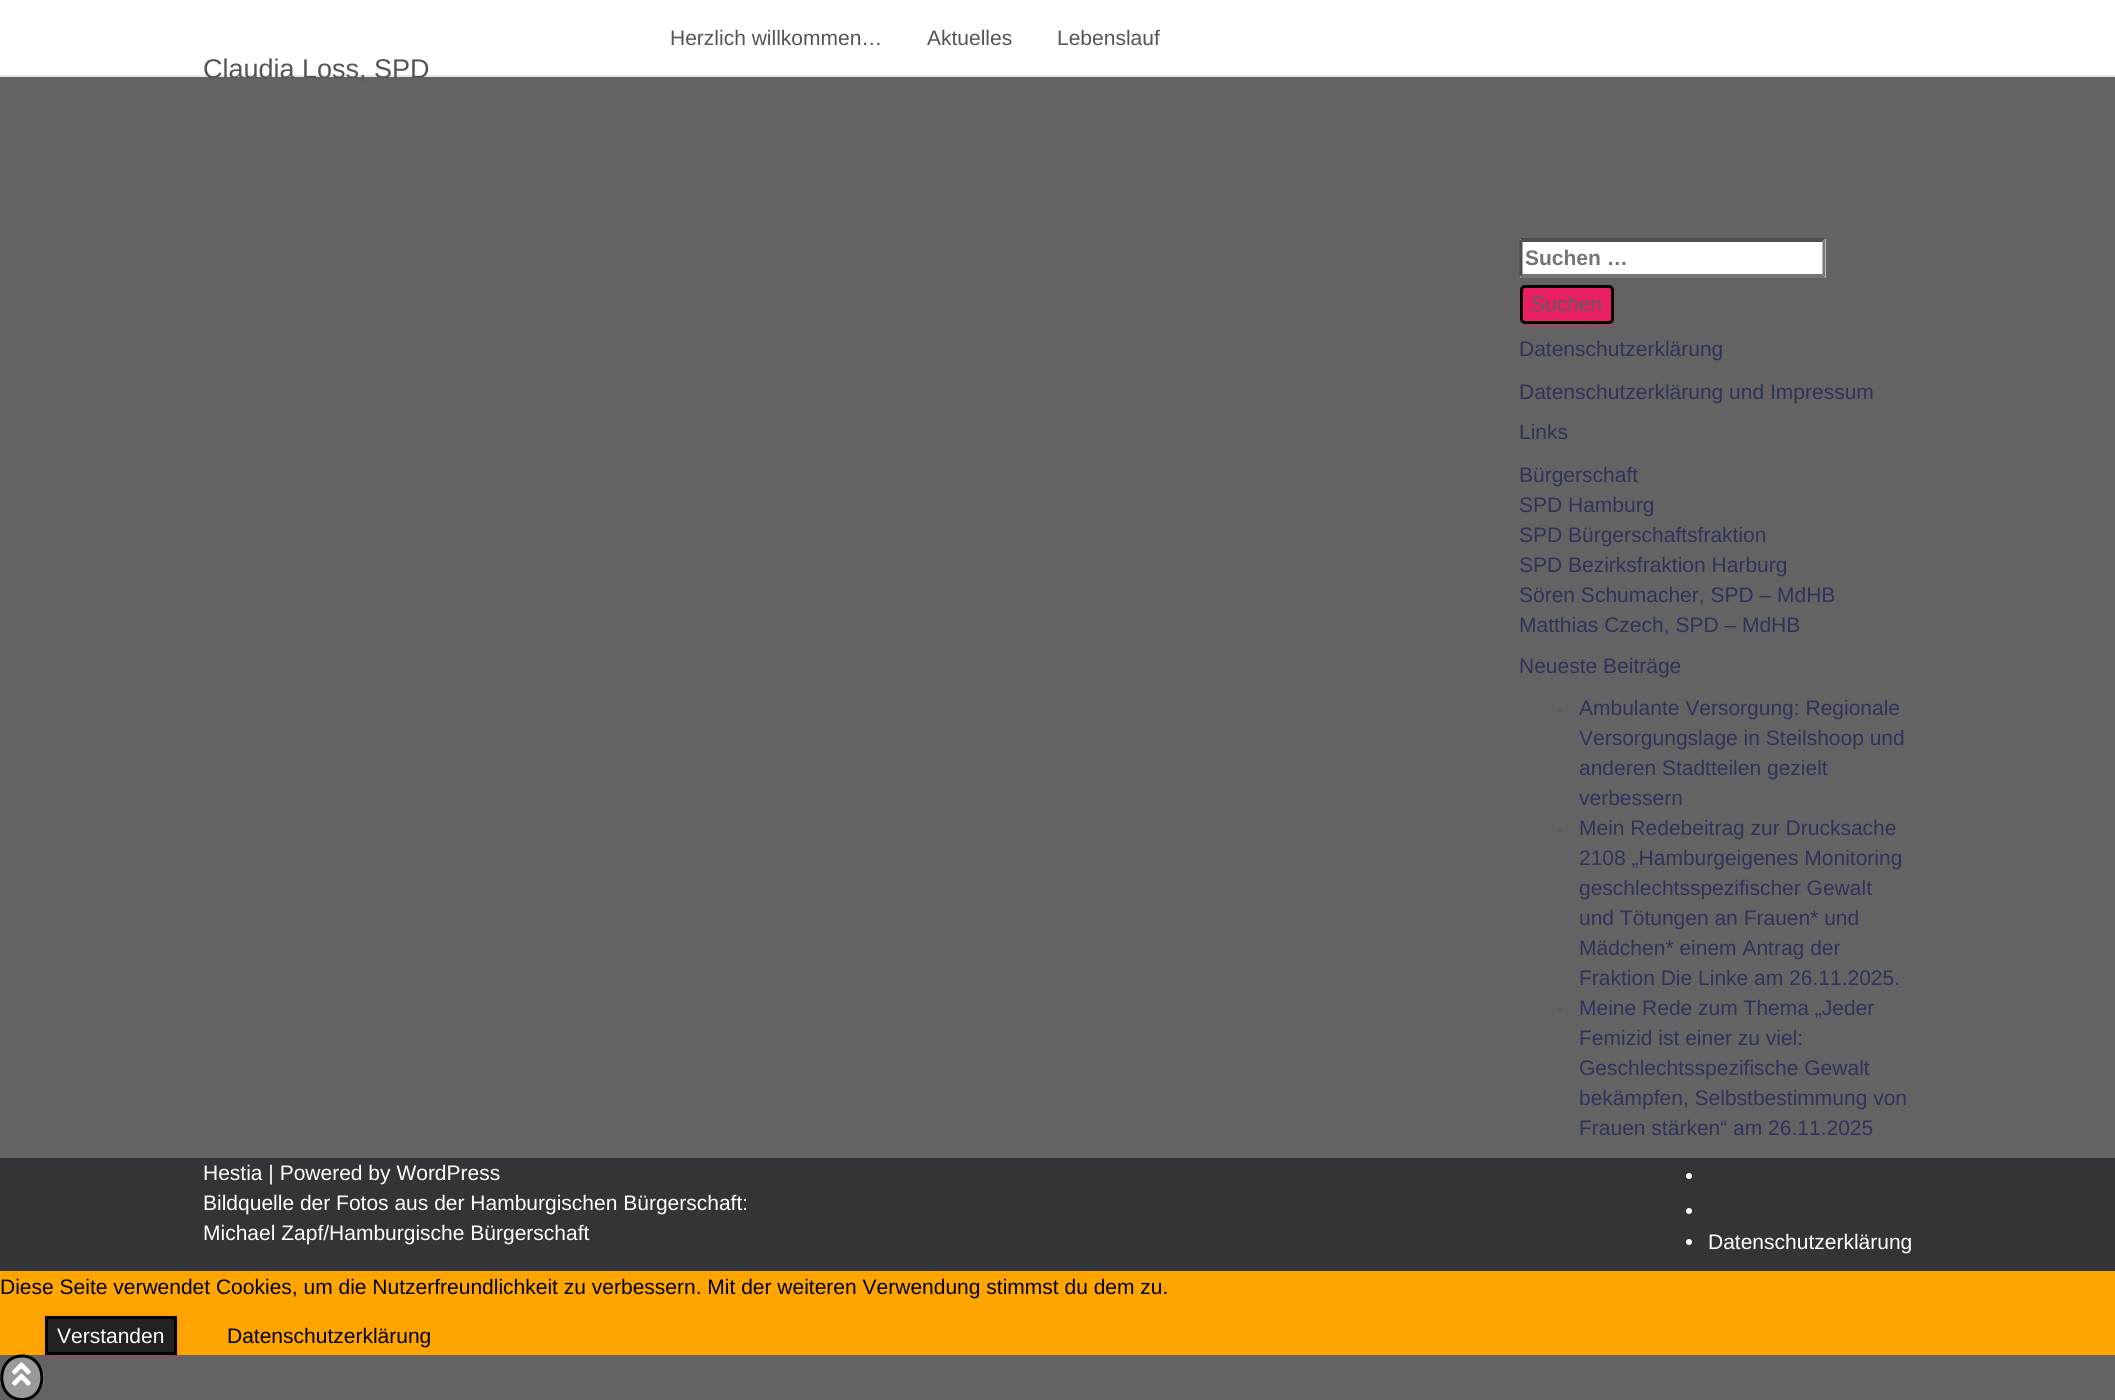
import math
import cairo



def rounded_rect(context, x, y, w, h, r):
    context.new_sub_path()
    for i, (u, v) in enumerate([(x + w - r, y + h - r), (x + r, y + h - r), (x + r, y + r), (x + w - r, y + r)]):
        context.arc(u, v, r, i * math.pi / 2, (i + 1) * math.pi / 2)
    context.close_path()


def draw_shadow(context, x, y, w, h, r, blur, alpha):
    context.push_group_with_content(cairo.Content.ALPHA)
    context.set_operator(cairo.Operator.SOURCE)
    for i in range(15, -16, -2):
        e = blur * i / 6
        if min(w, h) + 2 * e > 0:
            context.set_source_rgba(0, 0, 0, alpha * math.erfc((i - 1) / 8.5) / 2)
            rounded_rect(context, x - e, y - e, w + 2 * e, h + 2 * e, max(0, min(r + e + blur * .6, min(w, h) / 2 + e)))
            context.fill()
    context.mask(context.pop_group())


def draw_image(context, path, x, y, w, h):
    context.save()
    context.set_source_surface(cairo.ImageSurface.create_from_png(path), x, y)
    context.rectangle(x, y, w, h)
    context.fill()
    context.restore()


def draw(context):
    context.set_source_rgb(99 / 255, 99 / 255, 99 / 255)
    context.paint()
    context.set_source_rgb(1, 1, 1)
    context.rectangle(0, 0, 2115, 75)
    context.fill()
    context.set_source_rgb(231 / 255, 231 / 255, 231 / 255)
    context.rectangle(0, 75, 2115, 2)
    context.fill()
    context.set_source_rgb(1, 1, 1)
    context.rectangle(1520, 239, 306, 39)
    context.fill()
    context.set_source_rgb(79 / 255, 79 / 255, 79 / 255)
    context.new_path()
    context.move_to(1520, 238)
    context.line_to(1826, 238)
    context.line_to(1822, 242)
    context.line_to(1522, 242)
    context.close_path()
    context.fill()
    context.set_source_rgb(118 / 255, 118 / 255, 118 / 255)
    context.new_path()
    context.move_to(1825.5, 238.5)
    context.line_to(1825.5, 277.5)
    context.line_to(1822.5, 274.5)
    context.line_to(1822.5, 241.5)
    context.close_path()
    context.fill()
    context.new_path()
    context.move_to(1826, 278)
    context.line_to(1520, 278)
    context.line_to(1522, 274)
    context.line_to(1822, 274)
    context.close_path()
    context.fill()
    context.set_source_rgb(79 / 255, 79 / 255, 79 / 255)
    context.new_path()
    context.move_to(1519.5, 277.5)
    context.line_to(1519.5, 238.5)
    context.line_to(1522.5, 241.5)
    context.line_to(1522.5, 274.5)
    context.close_path()
    context.fill()
    context.set_source_rgb(233 / 255, 30 / 255, 99 / 255)
    draw_shadow(context, 1520, 287, 94, 39, 5, 4, 0.12)
    draw_shadow(context, 1523, 293, 88, 33, 1.5, 1, 0.2)
    draw_shadow(context, 1520, 288, 94, 39, 5, 1.5, 0.14)
    context.set_source_rgb(233 / 255, 30 / 255, 99 / 255)
    rounded_rect(context, 1521.5, 286.5, 91, 36, 3.5)
    context.fill_preserve()
    context.set_source_rgb(0, 0, 0)
    context.set_line_width(3)
    context.stroke()
    context.set_source_rgb(94 / 255, 94 / 255, 94 / 255)
    context.arc(1560, 710, 3, 0, 2 * math.pi)
    context.fill()
    context.arc(1560, 830, 3, 0, 2 * math.pi)
    context.fill()
    context.arc(1560, 1010, 3, 0, 2 * math.pi)
    context.fill()
    context.set_source_rgb(50 / 255, 52 / 255, 55 / 255)
    context.rectangle(0, 1158, 2115, 113)
    context.fill()
    context.set_source_rgb(1, 1, 1)
    context.arc(1689, 1176, 3, 0, 2 * math.pi)
    context.fill()
    context.arc(1689, 1211, 3, 0, 2 * math.pi)
    context.fill()
    context.arc(1689, 1242, 3, 0, 2 * math.pi)
    context.fill()
    context.set_source_rgb(1, 165 / 255, 0)
    context.rectangle(0, 1271, 2115, 84)
    context.fill()
    context.set_source_rgb(233 / 255, 30 / 255, 99 / 255)
    draw_shadow(context, 45, 1317, 132, 39, 0, 4, 0.12)
    draw_shadow(context, 48, 1323, 126, 33, 0, 1, 0.2)
    draw_shadow(context, 45, 1319, 132, 39, 0, 1.5, 0.14)
    context.set_source_rgb(34 / 255, 34 / 255, 34 / 255)
    context.rectangle(46.5, 1317.5, 129, 36)
    context.fill_preserve()
    context.set_source_rgb(0, 0, 0)
    context.stroke()
    context.set_source_rgb(153 / 255, 153 / 255, 153 / 255)
    context.new_path()
    context.move_to(22, 1355)
    context.curve_to(34, 1355, 44, 1365.5, 44, 1378)
    context.curve_to(44, 1390.5, 34, 1401, 22, 1401)
    context.curve_to(10, 1401, 0, 1390.5, 0, 1378)
    context.curve_to(0, 1365.5, 10, 1355, 22, 1355)
    context.close_path()
    context.fill()
    context.new_path()
    context.move_to(22, 1356)
    context.curve_to(48.5, 1356, 48.5, 1399.5, 22, 1399.5)
    context.curve_to(-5, 1399.5, -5, 1356, 22, 1356)
    context.close_path()
    context.set_source_rgb(0, 0, 0)
    context.stroke()
    draw_image(context, "images/1.png", 12, 1362, 19, 24)
    context.select_font_face("Liberation Sans")
    context.set_font_size(21)
    context.set_source_rgb(85 / 255, 85 / 255, 85 / 255)
    context.move_to(670, 45)
    context.show_text("Herzlich willkommen…")
    context.move_to(927, 45)
    context.show_text("Aktuelles")
    context.move_to(1057, 45)
    context.show_text("Lebenslauf")
    context.set_font_size(27)
    context.move_to(203, 78)
    context.show_text("Claudia Loss, SPD")
    context.select_font_face("Liberation Sans", cairo.FontSlant.NORMAL, cairo.FontWeight.BOLD)
    context.set_font_size(21)
    context.set_source_rgb(117 / 255, 117 / 255, 117 / 255)
    context.move_to(1525, 265)
    context.show_text("Suchen …")
    context.select_font_face("Liberation Sans")
    context.set_source_rgb(94 / 255, 94 / 255, 94 / 255)
    context.move_to(1531, 311)
    context.show_text("Suchen")
    context.set_source_rgb(45 / 255, 51 / 255, 89 / 255)
    context.move_to(1519, 356)
    context.show_text("Datenschutzerklärung")
    context.move_to(1519, 399)
    context.show_text("Datenschutzerklärung und Impressum")
    context.move_to(1519, 439)
    context.show_text("Links")
    context.move_to(1519, 482)
    context.show_text("Bürgerschaft")
    context.move_to(1519, 512)
    context.show_text("SPD Hamburg")
    context.move_to(1519, 542)
    context.show_text("SPD Bürgerschaftsfraktion")
    context.move_to(1519, 572)
    context.show_text("SPD Bezirksfraktion Harburg")
    context.move_to(1519, 602)
    context.show_text("Sören Schumacher, SPD – MdHB")
    context.move_to(1519, 632)
    context.show_text("Matthias Czech, SPD – MdHB")
    context.move_to(1519, 673)
    context.show_text("Neueste Beiträge")
    context.move_to(1579, 715)
    context.show_text("Ambulante Versorgung: Regionale")
    context.move_to(1579, 745)
    context.show_text("Versorgungslage in Steilshoop und")
    context.move_to(1579, 775)
    context.show_text("anderen Stadtteilen gezielt")
    context.move_to(1579, 805)
    context.show_text("verbessern")
    context.move_to(1579, 835)
    context.show_text("Mein Redebeitrag zur Drucksache")
    context.move_to(1579, 865)
    context.show_text("2108 „Hamburgeigenes Monitoring")
    context.move_to(1579, 895)
    context.show_text("geschlechtsspezifischer Gewalt")
    context.move_to(1579, 925)
    context.show_text("und Tötungen an Frauen* und")
    context.move_to(1579, 955)
    context.show_text("Mädchen* einem Antrag der")
    context.move_to(1579, 985)
    context.show_text("Fraktion Die Linke am 26.11.2025.")
    context.move_to(1579, 1015)
    context.show_text("Meine Rede zum Thema „Jeder")
    context.move_to(1579, 1045)
    context.show_text("Femizid ist einer zu viel:")
    context.move_to(1579, 1075)
    context.show_text("Geschlechtsspezifische Gewalt")
    context.move_to(1579, 1105)
    context.show_text("bekämpfen, Selbstbestimmung von")
    context.move_to(1579, 1135)
    context.show_text("Frauen stärken“ am 26.11.2025")
    context.set_source_rgb(1, 1, 1)
    context.move_to(203, 1180)
    context.show_text("Hestia | Powered by WordPress")
    context.move_to(203, 1210)
    context.show_text("Bildquelle der Fotos aus der Hamburgischen Bürgerschaft:")
    context.move_to(203, 1240)
    context.show_text("Michael Zapf/Hamburgische Bürgerschaft")
    context.move_to(1708, 1249)
    context.show_text("Datenschutzerklärung")
    context.set_source_rgb(0, 0, 0)
    context.move_to(0, 1294)
    context.show_text("Diese Seite verwendet Cookies, um die Nutzerfreundlichkeit zu verbessern. Mit der weiteren Verwendung stimmst du dem zu.")
    context.set_source_rgb(1, 1, 1)
    context.move_to(57, 1343)
    context.show_text("Verstanden")
    context.set_source_rgb(0, 0, 0)
    context.move_to(227, 1343)
    context.show_text("Datenschutzerklärung")


surface = cairo.ImageSurface(cairo.Format.RGB24, 2115, 1400)
context = cairo.Context(surface)
options = cairo.FontOptions()
options.set_hint_metrics(cairo.HintMetrics.OFF)
options.set_hint_style(cairo.HintStyle.NONE)
context.set_font_options(options)
context.set_miter_limit(4)
draw(context)
surface.write_to_png("out.png")
